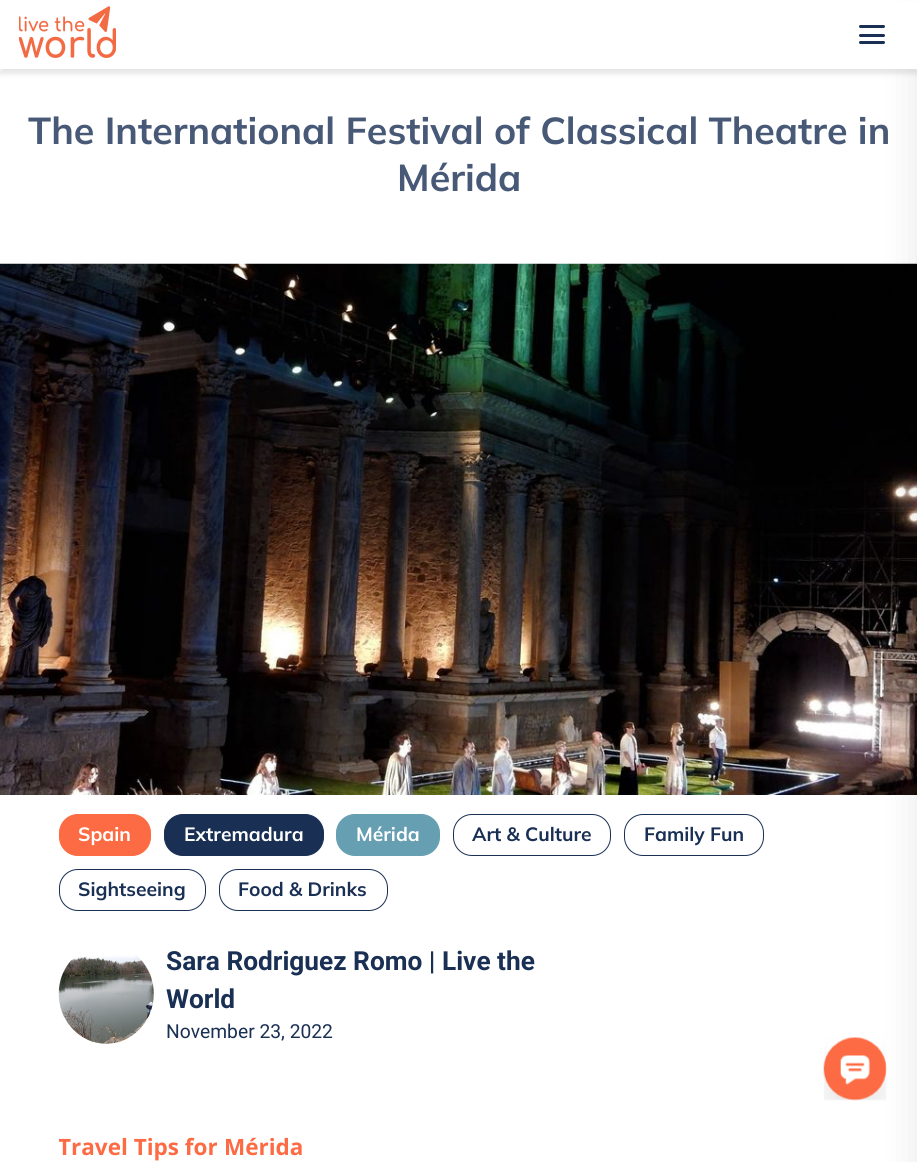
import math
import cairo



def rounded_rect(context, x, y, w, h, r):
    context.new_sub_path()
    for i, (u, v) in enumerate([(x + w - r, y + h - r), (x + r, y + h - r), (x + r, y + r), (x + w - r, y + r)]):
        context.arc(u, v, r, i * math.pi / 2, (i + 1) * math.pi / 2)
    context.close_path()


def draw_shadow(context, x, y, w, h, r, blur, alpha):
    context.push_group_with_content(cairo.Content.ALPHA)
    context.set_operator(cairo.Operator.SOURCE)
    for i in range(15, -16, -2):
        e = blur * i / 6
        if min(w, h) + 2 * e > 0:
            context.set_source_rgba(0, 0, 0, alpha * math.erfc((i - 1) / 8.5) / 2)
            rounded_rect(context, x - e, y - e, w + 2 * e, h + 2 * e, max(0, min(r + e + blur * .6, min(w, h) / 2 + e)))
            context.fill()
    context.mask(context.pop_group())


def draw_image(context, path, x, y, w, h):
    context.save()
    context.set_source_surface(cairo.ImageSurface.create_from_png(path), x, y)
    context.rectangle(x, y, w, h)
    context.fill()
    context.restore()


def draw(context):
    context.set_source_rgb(1, 1, 1)
    context.paint()
    context.set_source_rgb(0, 0, 0)
    draw_shadow(context, 0, 5, 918, 69, 0, 2.5, 0.1)
    draw_image(context, "images/2.png", 0, 263, 917, 532)
    draw_shadow(context, 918, 25, 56, 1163, 0, 19, 0.1)
    context.set_source_rgb(1, 1, 1)
    context.rectangle(0, 1, 917, 68)
    context.fill()
    draw_image(context, "images/1.png", 19, 6, 97, 52)
    context.set_source_rgb(25 / 255, 47 / 255, 84 / 255)
    rounded_rect(context, 859, 25, 26, 3, 1.5)
    context.fill()
    rounded_rect(context, 859, 34, 26, 3, 1.5)
    context.fill()
    rounded_rect(context, 859, 41, 26, 3, 1.5)
    context.fill()
    context.set_source_rgb(252 / 255, 107 / 255, 67 / 255)
    rounded_rect(context, 59.5, 814.5, 91, 41, 18.5)
    context.fill_preserve()
    context.set_line_width(1)
    context.stroke()
    context.set_source_rgb(25 / 255, 47 / 255, 84 / 255)
    rounded_rect(context, 164.5, 814.5, 159, 41, 18.5)
    context.fill_preserve()
    context.stroke()
    context.set_source_rgb(102 / 255, 159 / 255, 178 / 255)
    rounded_rect(context, 336.5, 814.5, 103, 41, 18.5)
    context.fill_preserve()
    context.stroke()
    rounded_rect(context, 453.5, 814.5, 157, 41, 18.5)
    context.set_source_rgb(25 / 255, 47 / 255, 84 / 255)
    context.stroke()
    rounded_rect(context, 624.5, 814.5, 139, 41, 18.5)
    context.stroke()
    rounded_rect(context, 59.5, 869.5, 146, 41, 18.5)
    context.stroke()
    rounded_rect(context, 219.5, 869.5, 168, 41, 18.5)
    context.stroke()
    draw_image(context, "images/3.png", 58, 955, 96, 89)
    draw_image(context, "images/4.png", 823, 1037, 64, 64)
    context.select_font_face("Mulish", cairo.FontSlant.NORMAL, cairo.FontWeight.BOLD)
    context.set_font_size(37.5)
    context.set_source_rgb(71 / 255, 89 / 255, 118 / 255)
    context.move_to(28, 144)
    context.show_text("The International Festival of Classical Theatre in")
    context.move_to(397, 191)
    context.show_text("Mérida")
    context.set_font_size(19.25)
    context.set_source_rgb(1, 1, 1)
    context.move_to(78, 841)
    context.show_text("Spain")
    context.move_to(184, 841)
    context.show_text("Extremadura")
    context.move_to(356, 841)
    context.show_text("Mérida")
    context.set_source_rgb(25 / 255, 47 / 255, 84 / 255)
    context.move_to(472, 841)
    context.show_text("Art & Culture")
    context.move_to(644, 841)
    context.show_text("Family Fun")
    context.move_to(78, 896)
    context.show_text("Sightseeing")
    context.move_to(238, 896)
    context.show_text("Food & Drinks")
    context.select_font_face("Roboto", cairo.FontSlant.NORMAL, cairo.FontWeight.BOLD)
    context.set_font_size(26.25)
    context.move_to(166, 970)
    context.show_text("Sara Rodriguez Romo | Live the")
    context.move_to(166, 1008)
    context.show_text("World")
    context.select_font_face("Roboto")
    context.set_font_size(19.25)
    context.move_to(166, 1038)
    context.show_text("November 23, 2022")
    context.save()
    context.rectangle(59, 1133, 800, 28)
    context.clip()
    context.select_font_face("Open Sans", cairo.FontSlant.NORMAL, cairo.FontWeight.BOLD)
    context.set_font_size(22.5)
    context.set_source_rgb(252 / 255, 107 / 255, 67 / 255)
    context.move_to(58, 1155)
    context.show_text("Travel Tips for")
    context.restore()
    context.select_font_face("Open Sans", cairo.FontSlant.NORMAL, cairo.FontWeight.BOLD)
    context.set_font_size(22.5)
    context.set_source_rgb(252 / 255, 107 / 255, 67 / 255)
    context.move_to(224, 1155)
    context.show_text("Mérida")


surface = cairo.ImageSurface(cairo.Format.RGB24, 917, 1162)
context = cairo.Context(surface)
options = cairo.FontOptions()
options.set_hint_metrics(cairo.HintMetrics.OFF)
options.set_hint_style(cairo.HintStyle.NONE)
context.set_font_options(options)
context.set_miter_limit(4)
draw(context)
surface.write_to_png("out.png")
